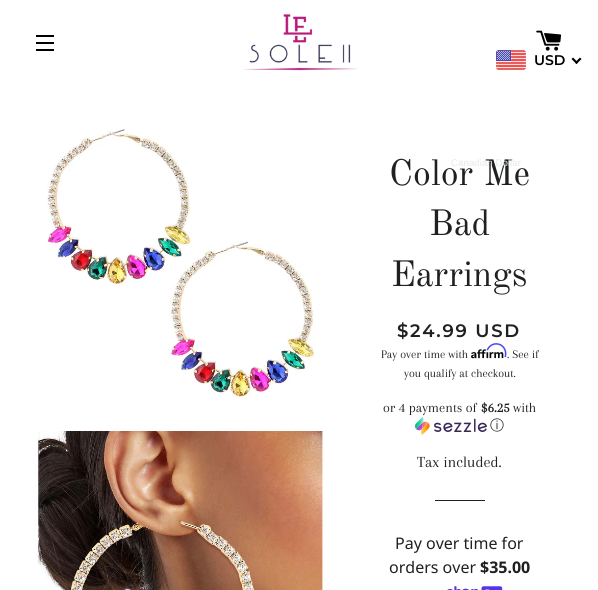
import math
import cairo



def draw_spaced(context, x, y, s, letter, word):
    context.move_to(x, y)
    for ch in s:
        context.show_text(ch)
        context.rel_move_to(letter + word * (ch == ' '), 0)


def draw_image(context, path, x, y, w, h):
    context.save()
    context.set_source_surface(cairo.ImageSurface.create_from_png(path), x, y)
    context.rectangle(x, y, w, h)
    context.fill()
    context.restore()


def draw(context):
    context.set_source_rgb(1, 1, 1)
    context.paint()
    context.set_source_rgb(0, 0, 0)
    context.rectangle(36, 35, 18, 2)
    context.fill()
    context.rectangle(36, 42, 18, 2)
    context.fill()
    context.rectangle(36, 49, 18, 2)
    context.fill()
    draw_image(context, "images/1.png", 243, 14, 115, 57)
    draw_image(context, "images/2.png", 536, 30, 26, 21)
    draw_image(context, "images/3.png", 496, 50, 30, 20)
    context.new_path()
    context.move_to(580, 57.5)
    context.line_to(581.5, 59)
    context.line_to(576.5, 64)
    context.line_to(575, 62.5)
    context.close_path()
    context.fill()
    context.new_path()
    context.move_to(573, 57.5)
    context.line_to(578, 62.5)
    context.line_to(576.5, 64)
    context.line_to(571.5, 59)
    context.close_path()
    context.fill()
    draw_image(context, "images/4.png", 30, 115, 301, 301)
    draw_image(context, "images/5.png", 30, 431, 301, 159)
    draw_image(context, "images/7.png", 471, 349, 33, 10)
    draw_image(context, "images/6.png", 486, 343, 21, 15)
    draw_image(context, "images/8.png", 415, 417, 72, 18)
    context.set_source_rgb(31 / 255, 32 / 255, 33 / 255)
    context.rectangle(435, 500, 50, 1)
    context.fill()
    draw_image(context, "images/9.png", 447, 586, 56, 4)
    context.select_font_face("Montserrat SemiBold")
    context.set_font_size(14)
    context.set_source_rgb(0, 0, 0)
    context.move_to(534, 65)
    context.show_text("USD")
    context.select_font_face("Old Standard TT")
    context.set_font_size(36)
    context.set_source_rgb(31 / 255, 32 / 255, 33 / 255)
    context.move_to(389, 185)
    context.show_text("Color Me")
    context.select_font_face("Liberation Sans")
    context.set_font_size(9.75)
    context.set_source_rgb(232 / 255, 232 / 255, 233 / 255)
    context.move_to(451, 166)
    context.show_text("Canadian Dollar")
    context.select_font_face("Old Standard TT")
    context.set_font_size(36)
    context.set_source_rgb(31 / 255, 32 / 255, 33 / 255)
    context.move_to(429, 235)
    context.show_text("Bad")
    context.move_to(391, 286)
    context.show_text("Earrings")
    context.select_font_face("Montserrat SemiBold")
    context.set_font_size(18)
    draw_spaced(context, 397, 337, "$24.99 USD", 1.75, 0)
    context.select_font_face("Arapey")
    context.set_font_size(12)
    context.move_to(381, 358)
    context.show_text("Pay over time with")
    context.move_to(507, 358)
    context.show_text(". See if")
    context.move_to(404, 377)
    context.show_text("you qualify at checkout.")
    context.set_font_size(14)
    context.move_to(383, 412)
    context.show_text("or 4 payments of")
    context.select_font_face("Arapey", cairo.FontSlant.NORMAL, cairo.FontWeight.BOLD)
    context.move_to(481, 412)
    context.show_text("$6.25")
    context.select_font_face("Arapey")
    context.move_to(513, 412)
    context.show_text("with")
    context.select_font_face("WenQuanYi Zen Hei Medium")
    context.move_to(490, 430)
    context.show_text("ⓘ")
    context.select_font_face("Arapey")
    context.set_font_size(16)
    context.move_to(417, 467)
    context.show_text("Tax included.")
    context.select_font_face("Noto Sans")
    context.move_to(395, 549)
    context.show_text("Pay over time for")
    context.move_to(389, 573)
    context.show_text("orders over")
    context.select_font_face("Noto Sans", cairo.FontSlant.NORMAL, cairo.FontWeight.BOLD)
    context.move_to(480, 573)
    context.show_text("$35.00")


surface = cairo.ImageSurface(cairo.Format.RGB24, 598, 590)
context = cairo.Context(surface)
options = cairo.FontOptions()
options.set_hint_metrics(cairo.HintMetrics.OFF)
options.set_hint_style(cairo.HintStyle.NONE)
context.set_font_options(options)
context.set_miter_limit(4)
draw(context)
surface.write_to_png("out.png")
